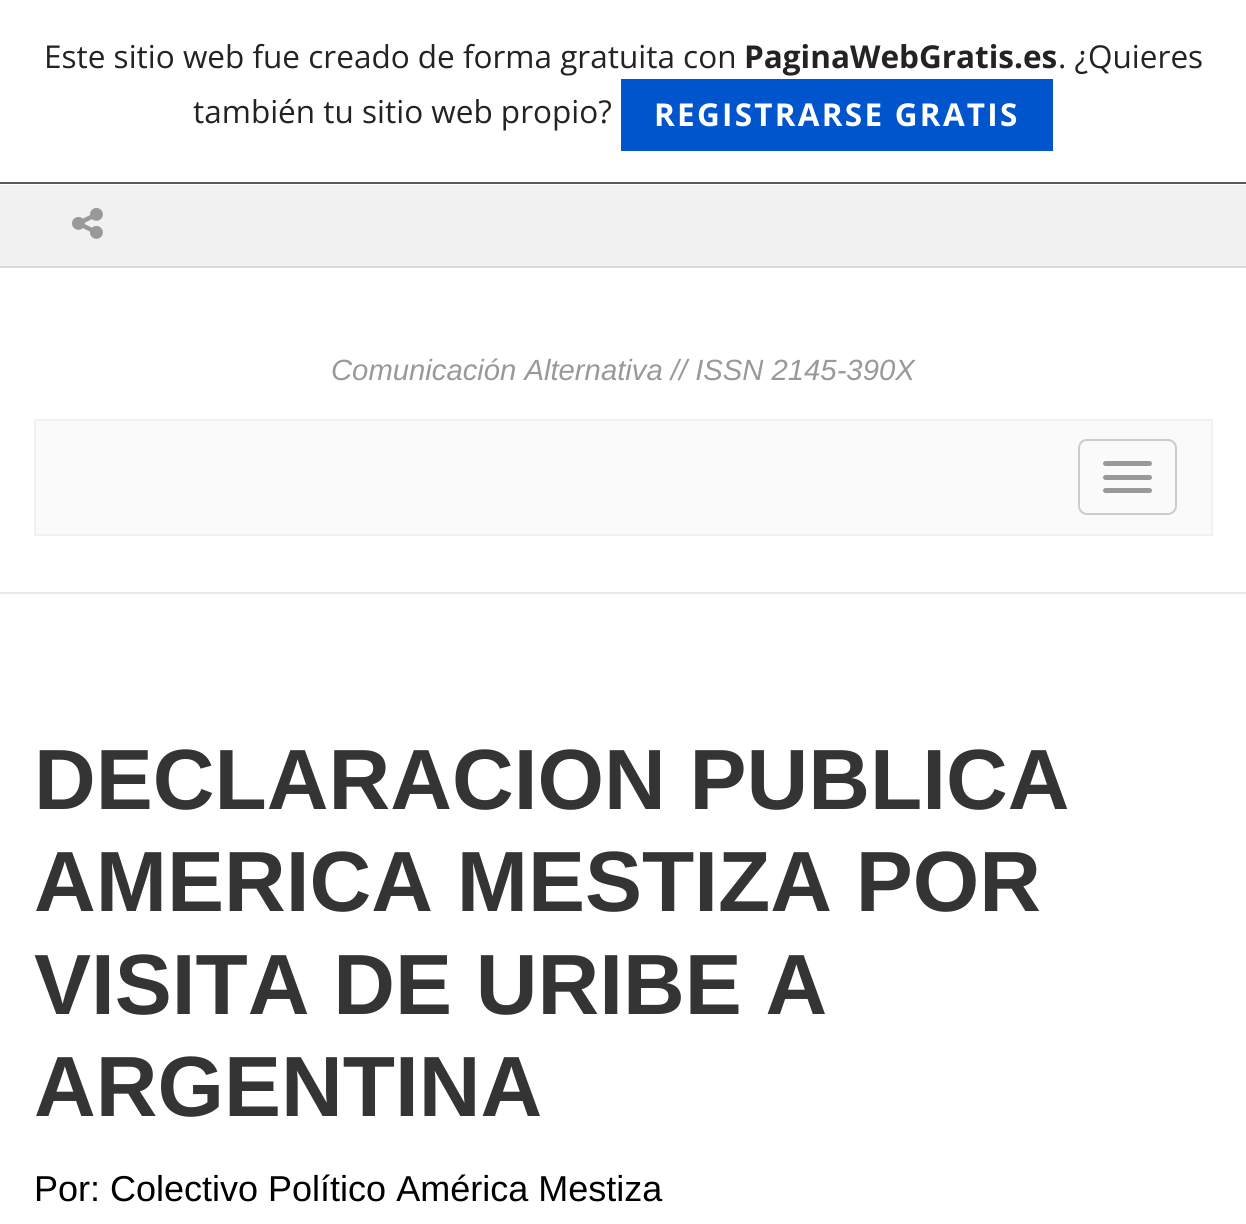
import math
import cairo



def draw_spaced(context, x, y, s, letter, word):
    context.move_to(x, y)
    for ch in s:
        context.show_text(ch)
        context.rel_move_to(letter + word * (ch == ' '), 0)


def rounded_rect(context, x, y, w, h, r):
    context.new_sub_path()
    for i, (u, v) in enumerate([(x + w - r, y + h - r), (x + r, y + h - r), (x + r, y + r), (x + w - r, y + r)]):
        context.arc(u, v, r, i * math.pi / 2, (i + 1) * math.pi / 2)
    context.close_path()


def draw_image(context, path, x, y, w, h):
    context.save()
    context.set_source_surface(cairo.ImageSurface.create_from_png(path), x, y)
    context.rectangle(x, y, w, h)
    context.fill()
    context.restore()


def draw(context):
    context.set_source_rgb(1, 1, 1)
    context.paint()
    context.set_source_rgb(90 / 255, 90 / 255, 90 / 255)
    context.rectangle(0, 182, 1246, 2)
    context.fill()
    context.set_source_rgb(0, 85 / 255, 204 / 255)
    context.rectangle(621, 79, 432, 72)
    context.fill()
    context.set_source_rgb(241 / 255, 241 / 255, 241 / 255)
    context.rectangle(0, 185, 1246, 81)
    context.fill()
    context.set_source_rgb(218 / 255, 218 / 255, 218 / 255)
    context.rectangle(0, 266, 1246, 2)
    context.fill()
    draw_image(context, "images/1.png", 72, 208, 31, 31)
    context.set_source_rgb(234 / 255, 234 / 255, 234 / 255)
    context.rectangle(0, 592, 1246, 2)
    context.fill()
    context.set_source_rgb(250 / 255, 250 / 255, 250 / 255)
    context.rectangle(35, 420, 1177, 115)
    context.fill_preserve()
    context.set_source_rgb(241 / 255, 241 / 255, 241 / 255)
    context.stroke()
    rounded_rect(context, 1079, 440, 97, 74, 8)
    context.set_source_rgb(204 / 255, 204 / 255, 204 / 255)
    context.stroke()
    context.set_source_rgb(153 / 255, 153 / 255, 153 / 255)
    rounded_rect(context, 1103, 461, 49, 5, 2.5)
    context.fill()
    rounded_rect(context, 1103, 475, 49, 5, 2.5)
    context.fill()
    rounded_rect(context, 1103, 488, 49, 5, 2.5)
    context.fill()
    context.select_font_face("Open Sans")
    context.set_font_size(31.5)
    context.set_source_rgb(35 / 255, 35 / 255, 35 / 255)
    context.move_to(44, 68)
    context.show_text("Este sitio web fue creado de forma gratuita con")
    context.select_font_face("Open Sans", cairo.FontSlant.NORMAL, cairo.FontWeight.BOLD)
    context.move_to(744, 68)
    context.show_text("PaginaWebGratis.es")
    context.select_font_face("Open Sans")
    context.move_to(1058, 68)
    context.show_text(". ¿Quieres")
    context.move_to(193, 123)
    context.show_text("también tu sitio web propio?")
    context.select_font_face("Open Sans", cairo.FontSlant.NORMAL, cairo.FontWeight.BOLD)
    context.set_source_rgb(1, 1, 1)
    draw_spaced(context, 654, 126, "REGISTRARSE GRATIS", 2.25, 0)
    context.select_font_face("Liberation Sans", cairo.FontSlant.ITALIC)
    context.set_font_size(29.25)
    context.set_source_rgb(153 / 255, 153 / 255, 153 / 255)
    context.move_to(331, 380)
    context.show_text("Comunicación Alternativa // ISSN 2145-390X")
    context.select_font_face("Liberation Sans", cairo.FontSlant.NORMAL, cairo.FontWeight.BOLD)
    context.set_font_size(85.5)
    context.set_source_rgb(52 / 255, 52 / 255, 52 / 255)
    context.move_to(34, 809)
    context.show_text("DECLARACION PUBLICA")
    context.move_to(34, 911)
    context.show_text("AMERICA MESTIZA POR")
    context.move_to(34, 1014)
    context.show_text("VISITA DE URIBE A")
    context.move_to(34, 1116)
    context.show_text("ARGENTINA")
    context.select_font_face("Liberation Sans")
    context.set_font_size(36)
    context.set_source_rgb(0, 0, 0)
    context.move_to(34, 1201)
    context.show_text("Por: Colectivo Político América Mestiza")


surface = cairo.ImageSurface(cairo.Format.RGB24, 1246, 1224)
context = cairo.Context(surface)
options = cairo.FontOptions()
options.set_hint_metrics(cairo.HintMetrics.OFF)
options.set_hint_style(cairo.HintStyle.NONE)
context.set_font_options(options)
context.set_miter_limit(4)
draw(context)
surface.write_to_png("out.png")
